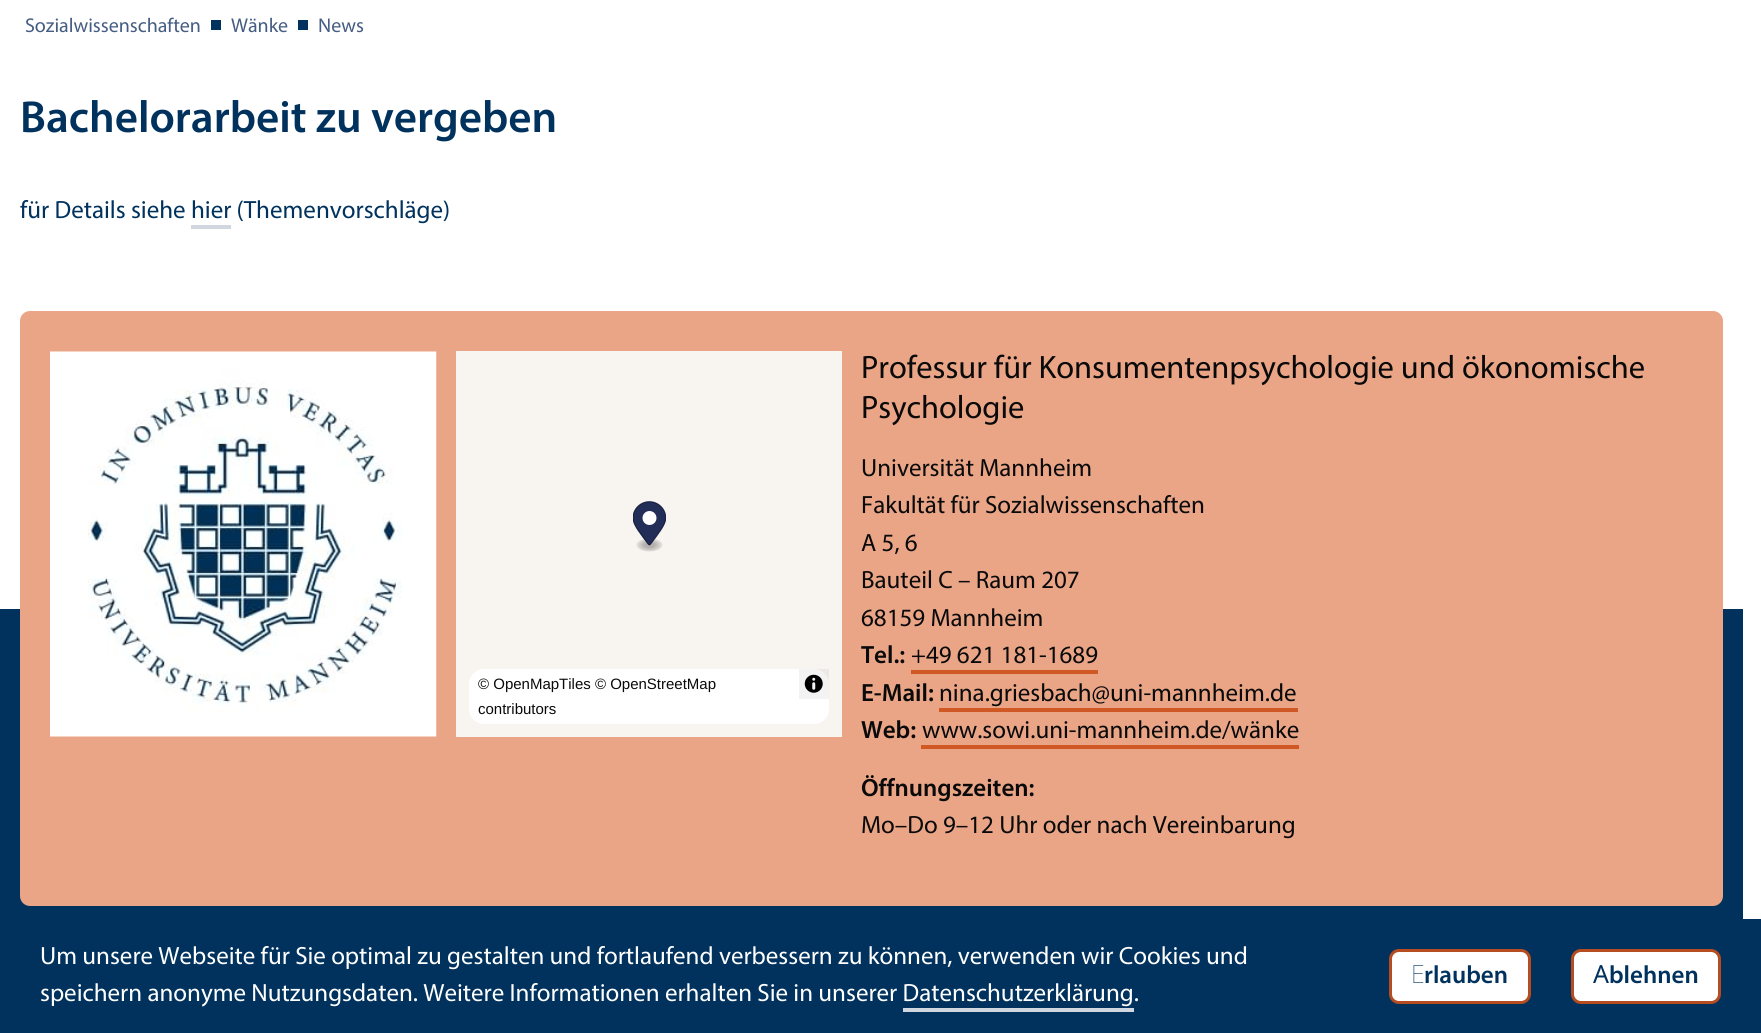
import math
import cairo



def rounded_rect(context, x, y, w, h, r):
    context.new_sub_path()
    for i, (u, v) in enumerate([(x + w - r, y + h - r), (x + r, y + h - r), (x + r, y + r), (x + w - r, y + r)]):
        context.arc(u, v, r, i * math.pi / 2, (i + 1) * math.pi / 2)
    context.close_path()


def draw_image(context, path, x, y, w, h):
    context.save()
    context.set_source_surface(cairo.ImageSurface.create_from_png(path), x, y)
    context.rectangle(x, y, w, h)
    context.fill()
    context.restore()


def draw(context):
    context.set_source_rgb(1, 1, 1)
    context.paint()
    context.set_source_rgb(0, 50 / 255, 93 / 255)
    context.rectangle(211, 20, 10, 10)
    context.fill()
    context.rectangle(298, 20, 10, 10)
    context.fill()
    context.set_source_rgb(209 / 255, 215 / 255, 223 / 255)
    context.rectangle(191, 225, 40, 4)
    context.fill()
    context.set_source_rgb(0, 50 / 255, 93 / 255)
    context.rectangle(0, 609, 1743, 310)
    context.fill()
    context.set_source_rgb(234 / 255, 165 / 255, 135 / 255)
    rounded_rect(context, 20, 311, 1703, 595, 10)
    context.fill()
    draw_image(context, "images/1.png", 50, 351, 387, 386)
    context.set_source_rgb(248 / 255, 244 / 255, 240 / 255)
    context.rectangle(456, 351, 386, 386)
    context.fill()
    draw_image(context, "images/2.png", 633, 501, 33, 51)
    context.set_source_rgb(1, 1, 1)
    rounded_rect(context, 469, 669, 360, 55, 15)
    context.fill()
    context.set_source_rgba(0, 0, 0, 0.05)
    context.rectangle(799, 669, 30, 30)
    context.fill()
    draw_image(context, "images/3.png", 804, 674, 19, 19)
    context.set_source_rgb(207 / 255, 88 / 255, 37 / 255)
    context.rectangle(911, 670, 187, 4)
    context.fill()
    context.rectangle(939, 708, 359, 4)
    context.fill()
    context.rectangle(921, 745, 378, 4)
    context.fill()
    context.set_source_rgb(0, 50 / 255, 93 / 255)
    context.rectangle(0, 919, 1761, 114)
    context.fill()
    context.set_source_rgb(209 / 255, 215 / 255, 223 / 255)
    context.rectangle(903, 1008, 231, 4)
    context.fill()
    context.set_source_rgb(1, 1, 1)
    rounded_rect(context, 1390.5, 950.5, 139, 52, 8.5)
    context.fill_preserve()
    context.set_source_rgb(181 / 255, 77 / 255, 32 / 255)
    context.set_line_width(3)
    context.stroke()
    context.set_source_rgb(1, 1, 1)
    rounded_rect(context, 1572.5, 950.5, 147, 52, 8.5)
    context.fill_preserve()
    context.set_source_rgb(181 / 255, 77 / 255, 32 / 255)
    context.stroke()
    context.select_font_face("myriad")
    context.set_font_size(20)
    context.set_source_rgb(69 / 255, 93 / 255, 130 / 255)
    context.move_to(25, 32)
    context.show_text("Sozialwissenschaften")
    context.move_to(231, 32)
    context.show_text("Wänke")
    context.move_to(318, 32)
    context.show_text("News")
    context.select_font_face("Myriad SemiBold")
    context.set_font_size(45)
    context.set_source_rgb(0, 50 / 255, 93 / 255)
    context.move_to(20, 132)
    context.show_text("Bachelorarbeit zu vergeben")
    context.select_font_face("myriad")
    context.set_font_size(25)
    context.move_to(20, 218)
    context.show_text("für Details siehe hier (Themenvorschläge)")
    context.select_font_face("Liberation Sans")
    context.set_font_size(15)
    context.set_source_rgb(10 / 255, 10 / 255, 10 / 255)
    context.move_to(478, 689)
    context.show_text("© OpenMapTiles © OpenStreetMap")
    context.move_to(478, 714)
    context.show_text("contributors")
    context.select_font_face("myriad")
    context.set_font_size(32.5)
    context.move_to(861, 378)
    context.show_text("Professur für Konsumentenpsychologie und ökonomische")
    context.move_to(861, 418)
    context.show_text("Psychologie")
    context.set_font_size(25)
    context.move_to(861, 476)
    context.show_text("Universität Mannheim")
    context.move_to(861, 513)
    context.show_text("Fakultät für Sozialwissenschaften")
    context.move_to(861, 551)
    context.show_text("A 5, 6")
    context.move_to(861, 588)
    context.show_text("Bauteil C – Raum 207")
    context.move_to(861, 626)
    context.show_text("68159 Mannheim")
    context.select_font_face("Myriad SemiBold")
    context.move_to(861, 663)
    context.show_text("Tel.:")
    context.select_font_face("myriad")
    context.move_to(911, 663)
    context.show_text("+49 621 181-1689")
    context.select_font_face("Myriad SemiBold")
    context.move_to(861, 701)
    context.show_text("E-Mail:")
    context.select_font_face("myriad")
    context.move_to(939, 701)
    context.show_text("nina.griesbach@uni-mannheim.de")
    context.select_font_face("Myriad SemiBold")
    context.move_to(861, 738)
    context.show_text("Web:")
    context.select_font_face("myriad")
    context.move_to(922, 738)
    context.show_text("www.sowi.uni-mannheim.de/wänke")
    context.select_font_face("Myriad SemiBold")
    context.move_to(861, 796)
    context.show_text("Öffnungszeiten:")
    context.select_font_face("myriad")
    context.move_to(861, 833)
    context.show_text("Mo–Do 9–12 Uhr oder nach Vereinbarung")
    context.set_source_rgb(1, 1, 1)
    context.move_to(40, 964)
    context.show_text("Um unsere Webseite für Sie optimal zu gestalten und fortlaufend verbessern zu können, verwenden wir Cookies und")
    context.move_to(40, 1001)
    context.show_text("speichern anonyme Nutzungsdaten. Weitere Informationen erhalten Sie in unserer Datenschutzerklärung.")
    context.select_font_face("Noto Sans Thin")
    context.set_source_rgb(0, 50 / 255, 93 / 255)
    context.move_to(1411, 983)
    context.show_text("E")
    context.select_font_face("Myriad SemiBold")
    context.move_to(1424, 983)
    context.show_text("rlauben")
    context.select_font_face("Noto Sans")
    context.move_to(1593, 983)
    context.show_text("A")
    context.select_font_face("Myriad SemiBold")
    context.move_to(1609, 983)
    context.show_text("blehnen")


surface = cairo.ImageSurface(cairo.Format.RGB24, 1761, 1033)
context = cairo.Context(surface)
options = cairo.FontOptions()
options.set_hint_metrics(cairo.HintMetrics.OFF)
options.set_hint_style(cairo.HintStyle.NONE)
context.set_font_options(options)
context.set_miter_limit(4)
draw(context)
surface.write_to_png("out.png")
